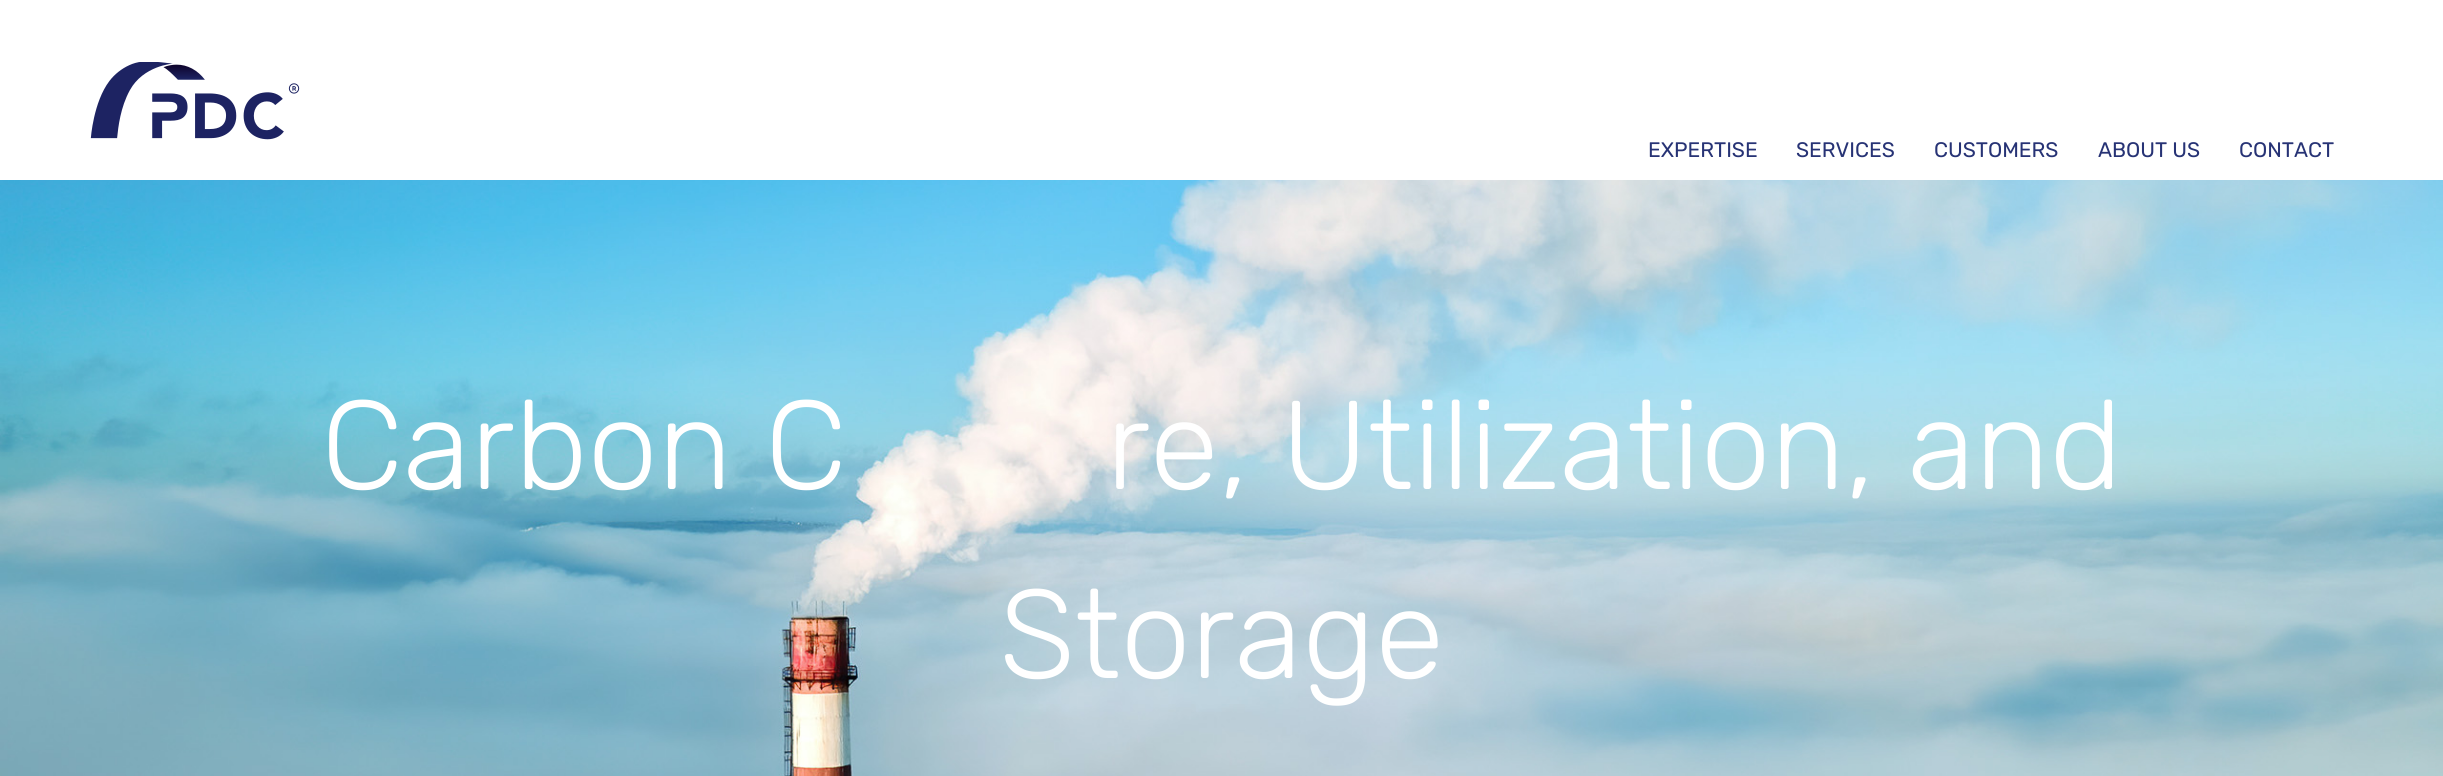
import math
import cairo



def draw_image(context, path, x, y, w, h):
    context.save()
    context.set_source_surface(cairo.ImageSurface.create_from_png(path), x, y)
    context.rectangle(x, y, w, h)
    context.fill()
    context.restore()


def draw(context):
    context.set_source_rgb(1, 1, 1)
    context.paint()
    draw_image(context, "images/1.png", 90, 62, 210, 78)
    draw_image(context, "images/2.png", 0, 180, 2443, 596)
    context.select_font_face("Rubik")
    context.set_font_size(21)
    context.set_source_rgb(39 / 255, 51 / 255, 117 / 255)
    context.move_to(1648, 157)
    context.show_text("EXPERTISE")
    context.move_to(1796, 157)
    context.show_text("SERVICES")
    context.move_to(1934, 157)
    context.show_text("CUSTOMERS")
    context.move_to(2098, 157)
    context.show_text("ABOUT US")
    context.move_to(2239, 157)
    context.show_text("CONTACT")
    context.select_font_face("Rubik Light")
    context.set_font_size(126)
    context.set_source_rgb(1, 1, 1)
    context.move_to(321, 489)
    context.show_text("Carbon C")
    context.move_to(1106, 489)
    context.show_text("re, Utilization, and")
    context.move_to(999, 678)
    context.show_text("Storage")


surface = cairo.ImageSurface(cairo.Format.RGB24, 2443, 776)
context = cairo.Context(surface)
options = cairo.FontOptions()
options.set_hint_metrics(cairo.HintMetrics.OFF)
options.set_hint_style(cairo.HintStyle.NONE)
context.set_font_options(options)
context.set_miter_limit(4)
draw(context)
surface.write_to_png("out.png")
